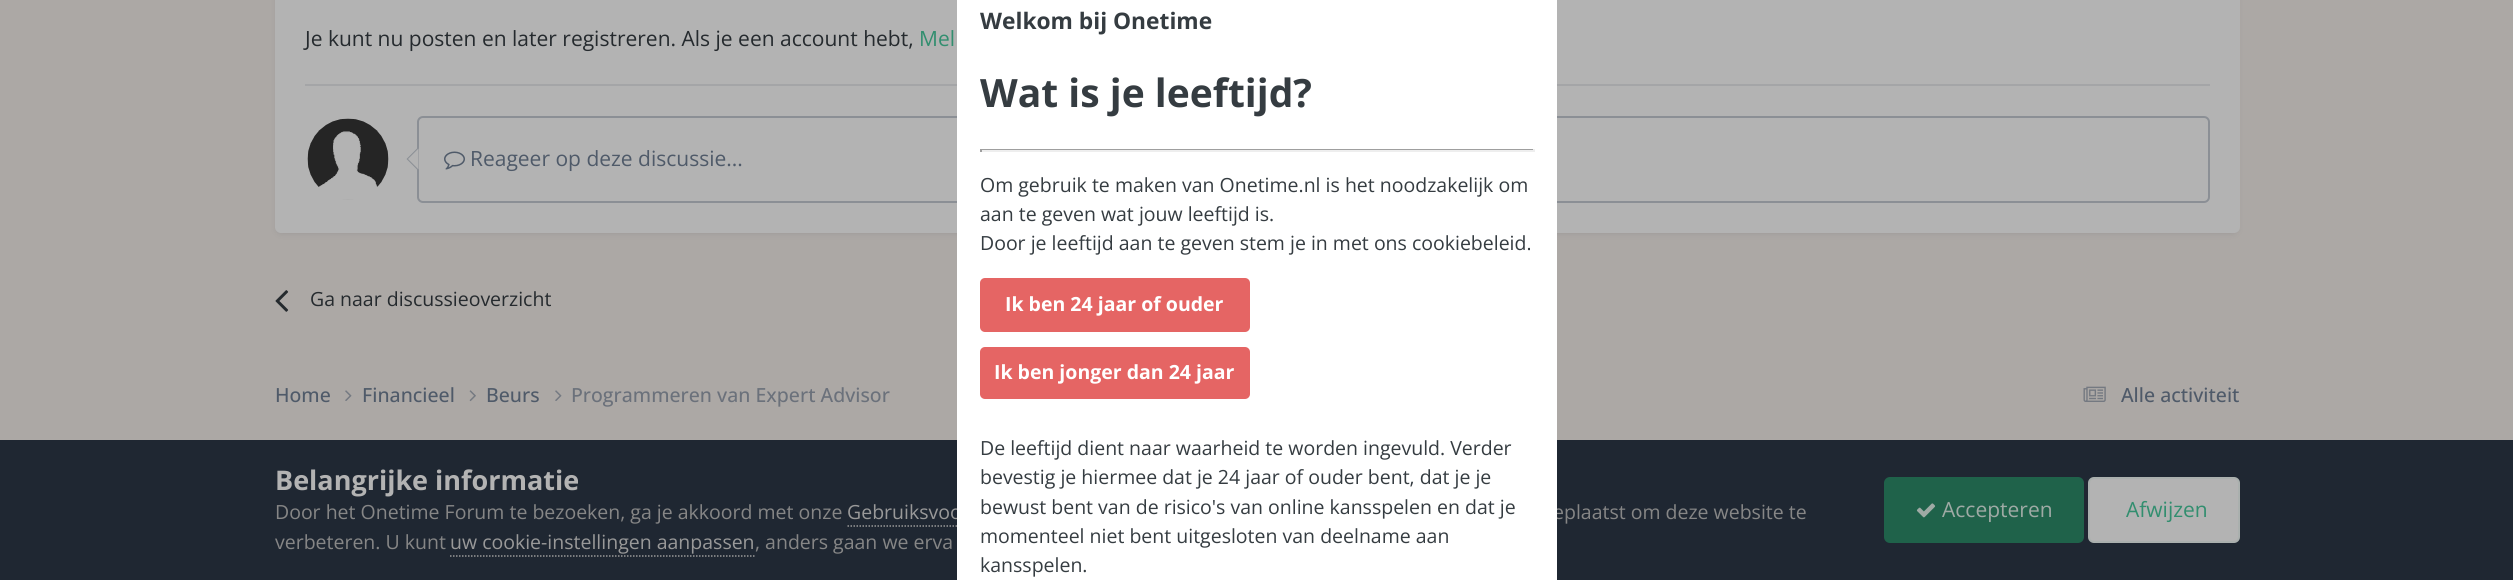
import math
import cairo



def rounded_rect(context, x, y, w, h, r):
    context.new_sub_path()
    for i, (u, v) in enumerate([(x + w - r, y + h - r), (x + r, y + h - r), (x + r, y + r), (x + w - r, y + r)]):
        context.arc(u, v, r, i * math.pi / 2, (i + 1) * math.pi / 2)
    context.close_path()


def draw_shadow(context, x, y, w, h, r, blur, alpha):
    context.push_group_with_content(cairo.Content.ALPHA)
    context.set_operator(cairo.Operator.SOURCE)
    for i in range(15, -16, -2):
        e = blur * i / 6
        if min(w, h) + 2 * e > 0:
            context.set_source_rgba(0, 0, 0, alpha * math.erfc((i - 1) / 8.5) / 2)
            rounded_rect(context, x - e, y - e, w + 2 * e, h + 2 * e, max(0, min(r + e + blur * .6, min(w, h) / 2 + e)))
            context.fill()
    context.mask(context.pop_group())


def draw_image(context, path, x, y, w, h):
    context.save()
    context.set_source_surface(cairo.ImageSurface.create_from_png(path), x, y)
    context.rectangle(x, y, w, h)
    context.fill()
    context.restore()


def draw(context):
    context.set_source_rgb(172 / 255, 168 / 255, 165 / 255)
    context.paint()
    context.set_source_rgb(31 / 255, 39 / 255, 50 / 255)
    draw_shadow(context, 276, -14, 1962, 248, 5, 3, 0.1)
    context.set_source_rgb(179 / 255, 179 / 255, 179 / 255)
    rounded_rect(context, 275, -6, 1965, 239, 6)
    context.fill()
    context.set_source_rgb(164 / 255, 165 / 255, 167 / 255)
    context.rectangle(305, 84, 1905, 2)
    context.fill()
    draw_image(context, "images/1.png", 307, 118, 82, 82)
    rounded_rect(context, 418, 117, 1791, 85, 5)
    context.set_source_rgb(139 / 255, 143 / 255, 149 / 255)
    context.stroke()
    context.new_path()
    context.move_to(417, 148.5)
    context.line_to(417, 169.5)
    context.line_to(406.5, 159)
    context.close_path()
    context.fill()
    context.set_source_rgb(179 / 255, 179 / 255, 179 / 255)
    context.new_path()
    context.move_to(418.5, 148.5)
    context.line_to(418.5, 169.5)
    context.line_to(408, 159)
    context.close_path()
    context.fill()
    draw_image(context, "images/2.png", 444, 151, 21, 19)
    draw_image(context, "images/3.png", 275, 290, 14, 22)
    draw_image(context, "images/4.png", 345, 390, 7, 11)
    draw_image(context, "images/5.png", 469, 390, 7, 12)
    draw_image(context, "images/4.png", 555, 390, 7, 11)
    draw_image(context, "images/6.png", 2083, 386, 23, 16)
    context.set_source_rgb(31 / 255, 39 / 255, 50 / 255)
    context.rectangle(0, 440, 2513, 140)
    context.fill()
    context.new_path()
    context.move_to(847.5, 526)
    context.line_to(1048.5, 526)
    context.set_source_rgb(153 / 255, 153 / 255, 153 / 255)
    context.set_line_width(1.5)
    context.set_dash([1.5, 1.5])
    context.stroke()
    context.new_path()
    context.move_to(450, 556)
    context.line_to(754.5, 556)
    context.stroke()
    context.set_source_rgb(31 / 255, 98 / 255, 74 / 255)
    rounded_rect(context, 1884, 477, 200, 66, 6)
    context.fill()
    draw_image(context, "images/7.png", 1916, 503, 20, 15)
    context.set_source_rgb(179 / 255, 179 / 255, 179 / 255)
    rounded_rect(context, 2088, 477, 152, 66, 6)
    context.fill()
    rounded_rect(context, 2089, 478, 150, 64, 5)
    context.set_source_rgba(50 / 255, 142 / 255, 111 / 255, 0.07)
    context.set_line_width(2)
    context.set_dash([])
    context.stroke()
    context.select_font_face("Open Sans")
    context.set_font_size(21)
    context.set_source_rgb(37 / 255, 42 / 255, 46 / 255)
    context.move_to(305, 46)
    context.show_text("Je kunt nu posten en later registreren. Als je een account hebt,")
    context.set_source_rgb(50 / 255, 142 / 255, 111 / 255)
    context.move_to(919, 46)
    context.show_text("Mel")
    context.set_source_rgb(79 / 255, 90 / 255, 105 / 255)
    context.move_to(470, 166)
    context.show_text("Reageer op deze discussie...")
    context.set_font_size(19.5)
    context.set_source_rgb(37 / 255, 42 / 255, 46 / 255)
    context.move_to(310, 306)
    context.show_text("Ga naar discussieoverzicht")
    context.select_font_face("Open Sans Medium")
    context.set_source_rgb(79 / 255, 90 / 255, 105 / 255)
    context.move_to(275, 402)
    context.show_text("Home")
    context.move_to(362, 402)
    context.show_text("Financieel")
    context.move_to(486, 402)
    context.show_text("Beurs")
    context.set_source_rgb(107 / 255, 113 / 255, 123 / 255)
    context.move_to(571, 402)
    context.show_text("Programmeren van Expert Advisor")
    context.set_source_rgb(79 / 255, 90 / 255, 105 / 255)
    context.move_to(2121, 402)
    context.show_text("Alle activiteit")
    context.select_font_face("Open Sans", cairo.FontSlant.NORMAL, cairo.FontWeight.BOLD)
    context.set_font_size(27)
    context.set_source_rgb(179 / 255, 179 / 255, 179 / 255)
    context.move_to(275, 490)
    context.show_text("Belangrijke informatie")
    context.select_font_face("Open Sans")
    context.set_font_size(19.5)
    context.set_source_rgb(134 / 255, 134 / 255, 134 / 255)
    context.move_to(275, 519)
    context.show_text("Door het Onetime Forum te bezoeken, ga je akkoord met onze")
    context.set_source_rgb(153 / 255, 153 / 255, 153 / 255)
    context.move_to(847, 519)
    context.show_text("Gebruiksvoo")
    context.set_source_rgb(134 / 255, 134 / 255, 134 / 255)
    context.move_to(1553, 519)
    context.show_text("eplaatst om deze website te")
    context.set_source_rgb(1, 1, 1)
    context.rectangle(957, 0, 600, 580)
    context.fill()
    context.set_source_rgb(53 / 255, 60 / 255, 65 / 255)
    context.move_to(980, 572)
    context.show_text("kansspelen.")
    context.move_to(980, 543)
    context.show_text("momenteel niet bent uitgesloten van deelname aan")
    context.move_to(980, 514)
    context.show_text("bewust bent van de risico's van online kansspelen en dat je")
    context.move_to(980, 484)
    context.show_text("bevestig je hiermee dat je 24 jaar of ouder bent, dat je je")
    context.move_to(980, 455)
    context.show_text("De leeftijd dient naar waarheid te worden ingevuld. Verder")
    context.set_source_rgb(229 / 255, 101 / 255, 100 / 255)
    rounded_rect(context, 980, 347, 270, 52, 5)
    context.fill()
    context.select_font_face("Open Sans", cairo.FontSlant.NORMAL, cairo.FontWeight.BOLD)
    context.set_source_rgb(1, 1, 1)
    context.move_to(994, 379)
    context.show_text("Ik ben jonger dan 24 jaar")
    context.set_source_rgb(229 / 255, 101 / 255, 100 / 255)
    rounded_rect(context, 980, 278, 270, 54, 5)
    context.fill()
    context.set_source_rgb(1, 1, 1)
    context.move_to(1005, 311)
    context.show_text("Ik ben 24 jaar of ouder")
    context.select_font_face("Open Sans")
    context.set_source_rgb(53 / 255, 60 / 255, 65 / 255)
    context.move_to(980, 250)
    context.show_text("Door je leeftijd aan te geven stem je in met ons cookiebeleid.")
    context.move_to(980, 221)
    context.show_text("aan te geven wat jouw leeftijd is.")
    context.move_to(980, 192)
    context.show_text("Om gebruik te maken van Onetime.nl is het noodzakelijk om")
    context.select_font_face("Open Sans", cairo.FontSlant.NORMAL, cairo.FontWeight.BOLD)
    context.set_font_size(39)
    context.move_to(980, 107)
    context.show_text("Wat is je leeftijd?")
    context.set_font_size(22.75)
    context.move_to(980, 29)
    context.show_text("Welkom bij Onetime")
    context.set_source_rgb(159 / 255, 159 / 255, 159 / 255)
    context.rectangle(980, 149, 555, 1)
    context.fill()
    context.set_source_rgb(238 / 255, 238 / 255, 238 / 255)
    context.rectangle(1533, 149, 2, 3)
    context.fill()
    context.rectangle(980, 150, 555, 2)
    context.fill()
    context.set_source_rgb(159 / 255, 159 / 255, 159 / 255)
    context.rectangle(980, 149, 2, 3)
    context.fill()
    context.select_font_face("Open Sans")
    context.set_font_size(19.5)
    context.set_source_rgb(134 / 255, 134 / 255, 134 / 255)
    context.move_to(275, 549)
    context.show_text("verbeteren. U kunt")
    context.set_source_rgb(153 / 255, 153 / 255, 153 / 255)
    context.move_to(450, 549)
    context.show_text("uw cookie-instellingen aanpassen")
    context.set_source_rgb(134 / 255, 134 / 255, 134 / 255)
    context.move_to(755, 549)
    context.show_text(", anders gaan we erva")
    context.set_font_size(21)
    context.set_source_rgb(159 / 255, 170 / 255, 165 / 255)
    context.move_to(1942, 517)
    context.show_text("Accepteren")
    context.set_source_rgb(50 / 255, 142 / 255, 111 / 255)
    context.move_to(2126, 517)
    context.show_text("Afwijzen")


surface = cairo.ImageSurface(cairo.Format.RGB24, 2513, 580)
context = cairo.Context(surface)
options = cairo.FontOptions()
options.set_hint_metrics(cairo.HintMetrics.OFF)
options.set_hint_style(cairo.HintStyle.NONE)
context.set_font_options(options)
context.set_miter_limit(4)
draw(context)
surface.write_to_png("out.png")
